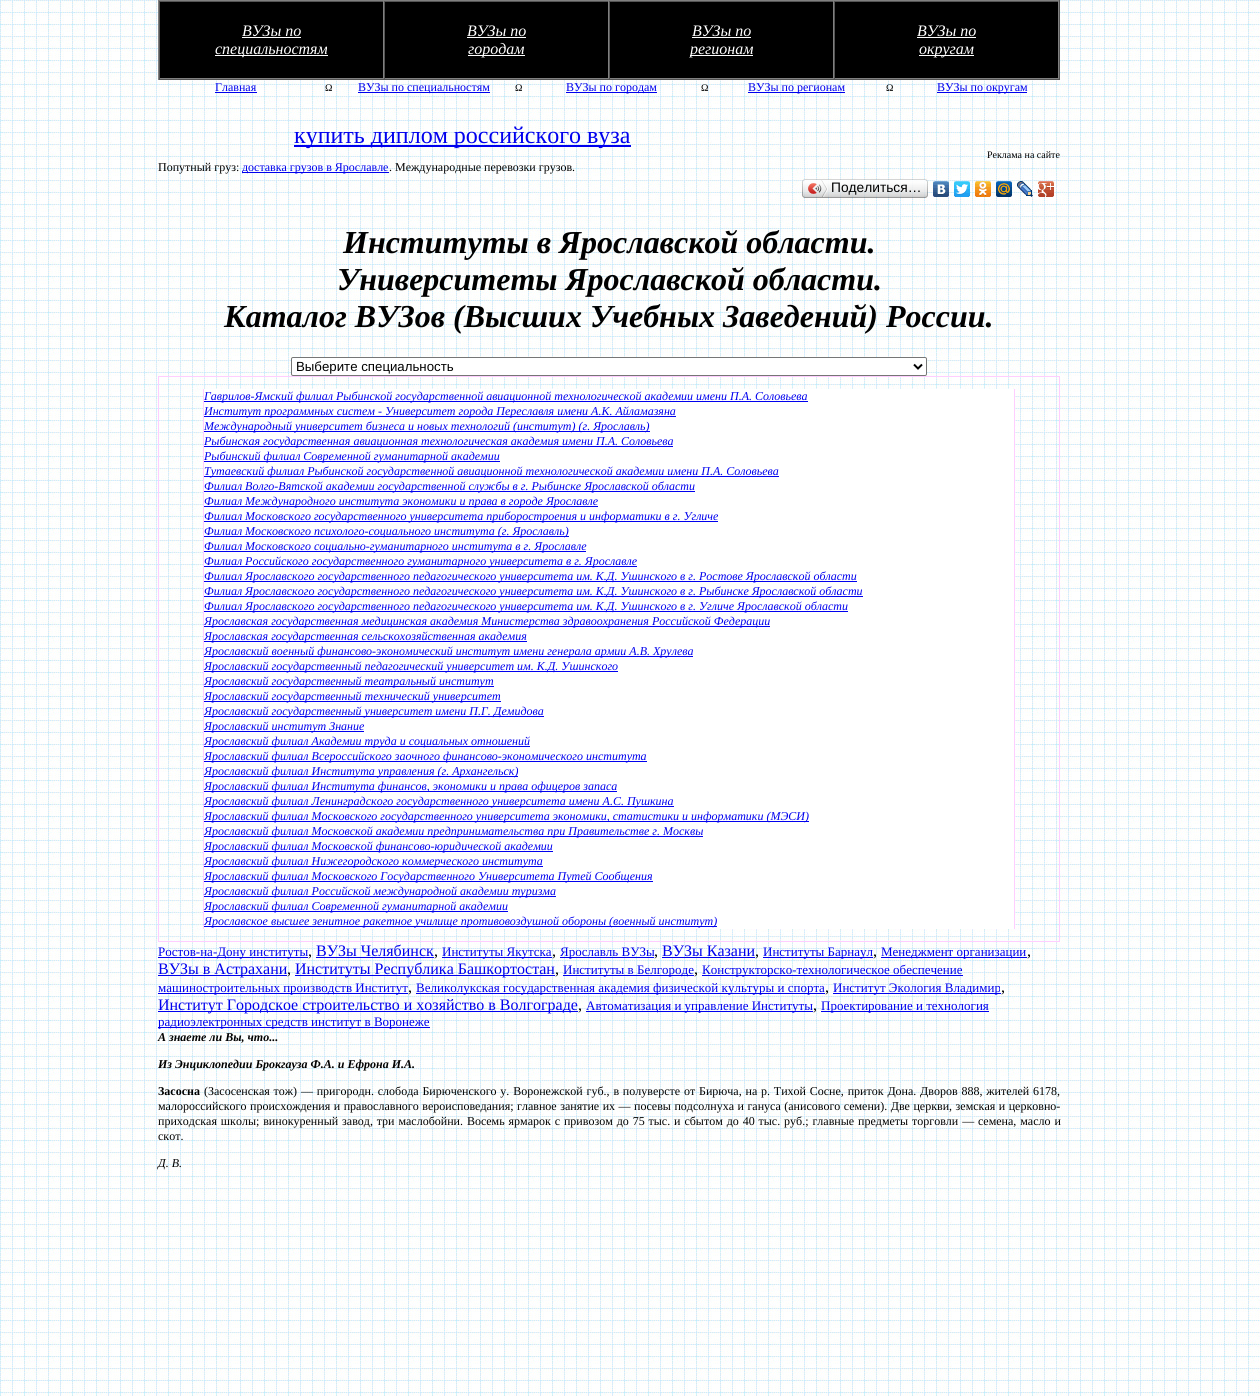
import math
import cairo



def draw_spaced(context, x, y, s, letter, word):
    context.move_to(x, y)
    for ch in s:
        context.show_text(ch)
        context.rel_move_to(letter + word * (ch == ' '), 0)


def rounded_rect(context, x, y, w, h, r):
    context.new_sub_path()
    for i, (u, v) in enumerate([(x + w - r, y + h - r), (x + r, y + h - r), (x + r, y + r), (x + w - r, y + r)]):
        context.arc(u, v, r, i * math.pi / 2, (i + 1) * math.pi / 2)
    context.close_path()


def draw_image(context, path, x, y, w, h):
    context.save()
    context.set_source_surface(cairo.ImageSurface.create_from_png(path), x, y)
    context.rectangle(x, y, w, h)
    context.fill()
    context.restore()


def draw(context):
    context.set_source_rgb(1, 1, 1)
    context.paint()
    draw_image(context, "images/1.png", 0, 0, 1260, 1396)
    context.set_source_rgb(0, 0, 0)
    context.rectangle(160, 2, 898, 76)
    context.fill()
    context.set_source_rgb(128 / 255, 128 / 255, 128 / 255)
    context.rectangle(158, 0, 902, 1)
    context.fill()
    context.set_source_rgb(85 / 255, 85 / 255, 85 / 255)
    context.rectangle(1059, 0, 1, 80)
    context.fill()
    context.rectangle(158, 79, 902, 1)
    context.fill()
    context.set_source_rgb(128 / 255, 128 / 255, 128 / 255)
    context.rectangle(158, 0, 1, 80)
    context.fill()
    context.set_source_rgb(85 / 255, 85 / 255, 85 / 255)
    context.rectangle(159, 1, 900, 1)
    context.fill()
    context.set_source_rgb(128 / 255, 128 / 255, 128 / 255)
    context.rectangle(383, 1, 1, 78)
    context.fill()
    context.rectangle(159, 78, 225, 1)
    context.fill()
    context.set_source_rgb(85 / 255, 85 / 255, 85 / 255)
    context.rectangle(159, 1, 1, 78)
    context.fill()
    context.set_source_rgb(1, 1, 1)
    context.rectangle(242, 37, 59, 1)
    context.fill()
    context.rectangle(215, 55, 113, 1)
    context.fill()
    context.set_source_rgb(128 / 255, 128 / 255, 128 / 255)
    context.rectangle(608, 1, 1, 78)
    context.fill()
    context.rectangle(384, 78, 225, 1)
    context.fill()
    context.set_source_rgb(85 / 255, 85 / 255, 85 / 255)
    context.rectangle(384, 1, 1, 78)
    context.fill()
    context.set_source_rgb(1, 1, 1)
    context.rectangle(467, 37, 59, 1)
    context.fill()
    context.rectangle(468, 55, 57, 1)
    context.fill()
    context.set_source_rgb(128 / 255, 128 / 255, 128 / 255)
    context.rectangle(833, 1, 1, 78)
    context.fill()
    context.rectangle(609, 78, 225, 1)
    context.fill()
    context.set_source_rgb(85 / 255, 85 / 255, 85 / 255)
    context.rectangle(609, 1, 1, 78)
    context.fill()
    context.set_source_rgb(1, 1, 1)
    context.rectangle(692, 37, 59, 1)
    context.fill()
    context.rectangle(690, 55, 63, 1)
    context.fill()
    context.set_source_rgb(128 / 255, 128 / 255, 128 / 255)
    context.rectangle(1058, 1, 1, 78)
    context.fill()
    context.rectangle(834, 78, 225, 1)
    context.fill()
    context.set_source_rgb(85 / 255, 85 / 255, 85 / 255)
    context.rectangle(834, 1, 1, 78)
    context.fill()
    context.set_source_rgb(1, 1, 1)
    context.rectangle(917, 37, 59, 1)
    context.fill()
    context.rectangle(919, 55, 55, 1)
    context.fill()
    context.set_source_rgb(0, 0, 238 / 255)
    context.rectangle(215, 92, 42, 1)
    context.fill()
    context.rectangle(358, 92, 132, 1)
    context.fill()
    context.rectangle(566, 92, 91, 1)
    context.fill()
    context.rectangle(748, 92, 97, 1)
    context.fill()
    context.rectangle(937, 92, 90, 1)
    context.fill()
    context.rectangle(294, 145, 337, 2)
    context.fill()
    context.rectangle(242, 172, 147, 1)
    context.fill()
    draw_image(context, "images/2.png", 805, 179, 120, 19)
    draw_image(context, "images/3.png", 802, 179, 3, 19)
    draw_image(context, "images/4.png", 808, 180, 20, 17)
    draw_image(context, "images/5.png", 925, 179, 3, 19)
    draw_image(context, "images/6.png", 933, 181, 16, 16)
    draw_image(context, "images/7.png", 954, 181, 16, 16)
    draw_image(context, "images/8.png", 975, 181, 16, 16)
    draw_image(context, "images/9.png", 996, 181, 16, 16)
    draw_image(context, "images/10.png", 1017, 181, 16, 16)
    draw_image(context, "images/11.png", 1038, 181, 16, 16)
    context.set_source_rgb(1, 1, 1)
    rounded_rect(context, 291.5, 357.5, 635, 18, 1.5)
    context.fill_preserve()
    context.set_source_rgb(118 / 255, 118 / 255, 118 / 255)
    context.set_line_width(1)
    context.stroke()
    context.new_path()
    context.move_to(914, 364.5)
    context.line_to(918, 368.5)
    context.line_to(922, 364.5)
    context.set_source_rgb(0, 0, 0)
    context.set_line_width(2)
    context.stroke()
    context.rectangle(158.5, 376.5, 901, 565)
    context.set_source_rgb(1, 206 / 255, 1)
    context.set_line_width(1)
    context.stroke()
    context.set_source_rgb(1, 1, 1)
    context.rectangle(204, 389, 810, 540)
    context.fill()
    context.set_source_rgb(1, 206 / 255, 1)
    context.rectangle(1014, 389, 1, 540)
    context.fill()
    context.rectangle(203, 389, 1, 540)
    context.fill()
    context.set_source_rgb(0, 0, 238 / 255)
    context.rectangle(204, 401, 604, 1)
    context.fill()
    context.rectangle(204, 416, 472, 1)
    context.fill()
    context.rectangle(204, 431, 446, 1)
    context.fill()
    context.rectangle(204, 446, 469, 1)
    context.fill()
    context.rectangle(204, 461, 296, 1)
    context.fill()
    context.rectangle(204, 476, 575, 1)
    context.fill()
    context.rectangle(204, 491, 491, 1)
    context.fill()
    context.rectangle(204, 506, 394, 1)
    context.fill()
    context.rectangle(204, 521, 514, 1)
    context.fill()
    context.rectangle(204, 536, 365, 1)
    context.fill()
    context.rectangle(204, 551, 382, 1)
    context.fill()
    context.rectangle(204, 566, 433, 1)
    context.fill()
    context.rectangle(204, 581, 653, 1)
    context.fill()
    context.rectangle(204, 596, 659, 1)
    context.fill()
    context.rectangle(204, 611, 644, 1)
    context.fill()
    context.rectangle(204, 626, 566, 1)
    context.fill()
    context.rectangle(204, 641, 323, 1)
    context.fill()
    context.rectangle(204, 656, 489, 1)
    context.fill()
    context.rectangle(204, 671, 414, 1)
    context.fill()
    context.rectangle(204, 686, 290, 1)
    context.fill()
    context.rectangle(204, 701, 297, 1)
    context.fill()
    context.rectangle(204, 716, 340, 1)
    context.fill()
    context.rectangle(204, 731, 160, 1)
    context.fill()
    context.rectangle(204, 746, 326, 1)
    context.fill()
    context.rectangle(204, 761, 443, 1)
    context.fill()
    context.rectangle(204, 776, 314, 1)
    context.fill()
    context.rectangle(204, 791, 413, 1)
    context.fill()
    context.rectangle(204, 806, 470, 1)
    context.fill()
    context.rectangle(204, 821, 605, 1)
    context.fill()
    context.rectangle(204, 836, 499, 1)
    context.fill()
    context.rectangle(204, 851, 349, 1)
    context.fill()
    context.rectangle(204, 866, 339, 1)
    context.fill()
    context.rectangle(204, 881, 449, 1)
    context.fill()
    context.rectangle(204, 896, 352, 1)
    context.fill()
    context.rectangle(204, 911, 304, 1)
    context.fill()
    context.rectangle(204, 926, 513, 1)
    context.fill()
    context.rectangle(158, 957, 150, 1)
    context.fill()
    context.rectangle(316, 957, 118, 1)
    context.fill()
    context.rectangle(442, 957, 110, 1)
    context.fill()
    context.rectangle(560, 957, 94, 1)
    context.fill()
    context.rectangle(662, 957, 93, 1)
    context.fill()
    context.rectangle(763, 957, 110, 1)
    context.fill()
    context.rectangle(881, 957, 146, 1)
    context.fill()
    context.rectangle(158, 975, 129, 1)
    context.fill()
    context.rectangle(295, 975, 260, 1)
    context.fill()
    context.rectangle(563, 975, 131, 1)
    context.fill()
    context.rectangle(702, 975, 261, 1)
    context.fill()
    context.rectangle(158, 993, 250, 1)
    context.fill()
    context.rectangle(416, 993, 409, 1)
    context.fill()
    context.rectangle(833, 993, 168, 1)
    context.fill()
    context.rectangle(158, 1011, 420, 1)
    context.fill()
    context.rectangle(586, 1011, 227, 1)
    context.fill()
    context.rectangle(821, 1011, 168, 1)
    context.fill()
    context.rectangle(158, 1027, 272, 1)
    context.fill()
    context.select_font_face("Liberation Serif", cairo.FontSlant.ITALIC)
    context.set_font_size(16)
    context.set_source_rgb(1, 1, 1)
    context.move_to(242, 36)
    context.show_text("ВУЗы по")
    context.move_to(215, 54)
    context.show_text("специальностям")
    context.move_to(467, 36)
    context.show_text("ВУЗы по")
    context.move_to(468, 54)
    context.show_text("городам")
    context.move_to(692, 36)
    context.show_text("ВУЗы по")
    context.move_to(690, 54)
    context.show_text("регионам")
    context.move_to(917, 36)
    context.show_text("ВУЗы по")
    context.move_to(919, 54)
    context.show_text("округам")
    context.select_font_face("Liberation Serif")
    context.set_font_size(12)
    context.set_source_rgb(0, 0, 238 / 255)
    context.move_to(215, 91)
    context.show_text("Главная")
    context.set_font_size(10)
    context.set_source_rgb(0, 0, 0)
    context.move_to(325, 91)
    context.show_text("Ω")
    context.set_font_size(12)
    context.set_source_rgb(0, 0, 238 / 255)
    context.move_to(358, 91)
    context.show_text("ВУЗы по специальностям")
    context.set_font_size(10)
    context.set_source_rgb(0, 0, 0)
    context.move_to(515, 91)
    context.show_text("Ω")
    context.set_font_size(12)
    context.set_source_rgb(0, 0, 238 / 255)
    context.move_to(566, 91)
    context.show_text("ВУЗы по городам")
    context.set_font_size(10)
    context.set_source_rgb(0, 0, 0)
    context.move_to(701, 91)
    context.show_text("Ω")
    context.set_font_size(12)
    context.set_source_rgb(0, 0, 238 / 255)
    context.move_to(748, 91)
    context.show_text("ВУЗы по регионам")
    context.set_font_size(10)
    context.set_source_rgb(0, 0, 0)
    context.move_to(886, 91)
    context.show_text("Ω")
    context.set_font_size(12)
    context.set_source_rgb(0, 0, 238 / 255)
    context.move_to(937, 91)
    context.show_text("ВУЗы по округам")
    context.set_font_size(24)
    context.move_to(294, 143)
    context.show_text("купить диплом российского вуза")
    context.set_font_size(10)
    context.set_source_rgb(0, 0, 0)
    context.move_to(987, 158)
    context.show_text("Реклама на сайте")
    context.set_font_size(12)
    context.move_to(158, 171)
    context.show_text("Попутный груз:")
    context.set_source_rgb(0, 0, 238 / 255)
    context.move_to(242, 171)
    context.show_text("доставка грузов в Ярославле")
    context.set_source_rgb(0, 0, 0)
    context.move_to(389, 171)
    context.show_text(". Международные перевозки грузов.")
    context.select_font_face("Liberation Sans")
    context.set_font_size(13.75)
    context.move_to(831, 192)
    context.show_text("Поделиться…")
    context.select_font_face("Liberation Serif", cairo.FontSlant.ITALIC, cairo.FontWeight.BOLD)
    context.set_font_size(32)
    context.move_to(343, 253)
    context.show_text("Институты в Ярославской области.")
    context.move_to(337, 290)
    context.show_text("Университеты Ярославской области.")
    context.move_to(224, 327)
    context.show_text("Каталог ВУЗов (Высших Учебных Заведений) России.")
    context.select_font_face("Liberation Sans")
    context.set_font_size(13.25)
    context.move_to(296, 371)
    context.show_text("Выберите специальность")
    context.select_font_face("Liberation Serif", cairo.FontSlant.ITALIC)
    context.set_font_size(12)
    context.set_source_rgb(0, 0, 238 / 255)
    context.move_to(204, 400)
    context.show_text("Гаврилов-Ямский филиал Рыбинской государственной авиационной технологической академии имени П.А. Соловьева")
    context.move_to(204, 415)
    context.show_text("Институт программных систем - Университет города Переславля имени А.К. Айламазяна")
    context.move_to(204, 430)
    context.show_text("Международный университет бизнеса и новых технологий (институт) (г. Ярославль)")
    context.move_to(204, 445)
    context.show_text("Рыбинская государственная авиационная технологическая академия имени П.А. Соловьева")
    context.move_to(204, 460)
    context.show_text("Рыбинский филиал Современной гуманитарной академии")
    context.move_to(204, 475)
    context.show_text("Тутаевский филиал Рыбинской государственной авиационной технологической академии имени П.А. Соловьева")
    context.move_to(204, 490)
    context.show_text("Филиал Волго-Вятской академии государственной службы в г. Рыбинске Ярославской области")
    context.move_to(204, 505)
    context.show_text("Филиал Международного института экономики и права в городе Ярославле")
    context.move_to(204, 520)
    context.show_text("Филиал Московского государственного университета приборостроения и информатики в г. Угличе")
    context.move_to(204, 535)
    context.show_text("Филиал Московского психолого-социального института (г. Ярославль)")
    context.move_to(204, 550)
    context.show_text("Филиал Московского социально-гуманитарного института в г. Ярославле")
    context.move_to(204, 565)
    context.show_text("Филиал Российского государственного гуманитарного университета в г. Ярославле")
    context.move_to(204, 580)
    context.show_text("Филиал Ярославского государственного педагогического университета им. К.Д. Ушинского в г. Ростове Ярославской области")
    context.move_to(204, 595)
    context.show_text("Филиал Ярославского государственного педагогического университета им. К.Д. Ушинского в г. Рыбинске Ярославской области")
    context.move_to(204, 610)
    context.show_text("Филиал Ярославского государственного педагогического университета им. К.Д. Ушинского в г. Угличе Ярославской области")
    context.move_to(204, 625)
    context.show_text("Ярославская государственная медицинская академия Министерства здравоохранения Российской Федерации")
    context.move_to(204, 640)
    context.show_text("Ярославская государственная сельскохозяйственная академия")
    context.move_to(204, 655)
    context.show_text("Ярославский военный финансово-экономический институт имени генерала армии А.В. Хрулева")
    context.move_to(204, 670)
    context.show_text("Ярославский государственный педагогический университет им. К.Д. Ушинского")
    context.move_to(204, 685)
    context.show_text("Ярославский государственный театральный институт")
    context.move_to(204, 700)
    context.show_text("Ярославский государственный технический университет")
    context.move_to(204, 715)
    context.show_text("Ярославский государственный университет имени П.Г. Демидова")
    context.move_to(204, 730)
    context.show_text("Ярославский институт Знание")
    context.move_to(204, 745)
    context.show_text("Ярославский филиал Академии труда и социальных отношений")
    context.move_to(204, 760)
    context.show_text("Ярославский филиал Всероссийского заочного финансово-экономического института")
    context.move_to(204, 775)
    context.show_text("Ярославский филиал Института управления (г. Архангельск)")
    context.move_to(204, 790)
    context.show_text("Ярославский филиал Института финансов, экономики и права офицеров запаса")
    context.move_to(204, 805)
    context.show_text("Ярославский филиал Ленинградского государственного университета имени А.С. Пушкина")
    context.move_to(204, 820)
    context.show_text("Ярославский филиал Московского государственного университета экономики, статистики и информатики (МЭСИ)")
    context.move_to(204, 835)
    context.show_text("Ярославский филиал Московской академии предпринимательства при Правительстве г. Москвы")
    context.move_to(204, 850)
    context.show_text("Ярославский филиал Московской финансово-юридической академии")
    context.move_to(204, 865)
    context.show_text("Ярославский филиал Нижегородского коммерческого института")
    context.move_to(204, 880)
    context.show_text("Ярославский филиал Московского Государственного Университета Путей Сообщения")
    context.move_to(204, 895)
    context.show_text("Ярославский филиал Российской международной академии туризма")
    context.move_to(204, 910)
    context.show_text("Ярославский филиал Современной гуманитарной академии")
    context.move_to(204, 925)
    context.show_text("Ярославское высшее зенитное ракетное училище противовоздушной обороны (военный институт)")
    context.select_font_face("Liberation Serif")
    context.set_font_size(13)
    context.move_to(158, 956)
    context.show_text("Ростов-на-Дону институты")
    context.set_font_size(16)
    context.set_source_rgb(0, 0, 0)
    context.move_to(308, 956)
    context.show_text(",")
    context.set_source_rgb(0, 0, 238 / 255)
    context.move_to(316, 956)
    context.show_text("ВУЗы Челябинск")
    context.set_source_rgb(0, 0, 0)
    context.move_to(434, 956)
    context.show_text(",")
    context.set_font_size(13)
    context.set_source_rgb(0, 0, 238 / 255)
    context.move_to(442, 956)
    context.show_text("Институты Якутска")
    context.set_font_size(16)
    context.set_source_rgb(0, 0, 0)
    context.move_to(552, 956)
    context.show_text(",")
    context.set_font_size(13)
    context.set_source_rgb(0, 0, 238 / 255)
    context.move_to(560, 956)
    context.show_text("Ярославль ВУЗы")
    context.set_font_size(16)
    context.set_source_rgb(0, 0, 0)
    context.move_to(654, 956)
    context.show_text(",")
    context.set_source_rgb(0, 0, 238 / 255)
    context.move_to(662, 956)
    context.show_text("ВУЗы Казани")
    context.set_source_rgb(0, 0, 0)
    context.move_to(755, 956)
    context.show_text(",")
    context.set_font_size(13)
    context.set_source_rgb(0, 0, 238 / 255)
    context.move_to(763, 956)
    context.show_text("Институты Барнаул")
    context.set_font_size(16)
    context.set_source_rgb(0, 0, 0)
    context.move_to(873, 956)
    context.show_text(",")
    context.set_font_size(13)
    context.set_source_rgb(0, 0, 238 / 255)
    context.move_to(881, 956)
    context.show_text("Менеджмент организации")
    context.set_font_size(16)
    context.set_source_rgb(0, 0, 0)
    context.move_to(1027, 956)
    context.show_text(",")
    context.set_source_rgb(0, 0, 238 / 255)
    context.move_to(158, 974)
    context.show_text("ВУЗы в Астрахани")
    context.set_source_rgb(0, 0, 0)
    context.move_to(287, 974)
    context.show_text(",")
    context.set_source_rgb(0, 0, 238 / 255)
    context.move_to(295, 974)
    context.show_text("Институты Республика Башкортостан")
    context.set_source_rgb(0, 0, 0)
    context.move_to(555, 974)
    context.show_text(",")
    context.set_font_size(13)
    context.set_source_rgb(0, 0, 238 / 255)
    context.move_to(563, 974)
    context.show_text("Институты в Белгороде")
    context.set_font_size(16)
    context.set_source_rgb(0, 0, 0)
    context.move_to(694, 974)
    context.show_text(",")
    context.set_font_size(13)
    context.set_source_rgb(0, 0, 238 / 255)
    context.move_to(702, 974)
    context.show_text("Конструкторско-технологическое обеспечение")
    context.move_to(158, 992)
    context.show_text("машиностроительных производств Институт")
    context.set_font_size(16)
    context.set_source_rgb(0, 0, 0)
    context.move_to(408, 992)
    context.show_text(",")
    context.set_font_size(13)
    context.set_source_rgb(0, 0, 238 / 255)
    context.move_to(416, 992)
    context.show_text("Великолукская государственная академия физической культуры и спорта")
    context.set_font_size(16)
    context.set_source_rgb(0, 0, 0)
    context.move_to(825, 992)
    context.show_text(",")
    context.set_font_size(13)
    context.set_source_rgb(0, 0, 238 / 255)
    context.move_to(833, 992)
    context.show_text("Институт Экология Владимир")
    context.set_font_size(16)
    context.set_source_rgb(0, 0, 0)
    context.move_to(1001, 992)
    context.show_text(",")
    context.set_source_rgb(0, 0, 238 / 255)
    context.move_to(158, 1010)
    context.show_text("Институт Городское строительство и хозяйство в Волгограде")
    context.set_source_rgb(0, 0, 0)
    context.move_to(578, 1010)
    context.show_text(",")
    context.set_font_size(13)
    context.set_source_rgb(0, 0, 238 / 255)
    context.move_to(586, 1010)
    context.show_text("Автоматизация и управление Институты")
    context.set_font_size(16)
    context.set_source_rgb(0, 0, 0)
    context.move_to(813, 1010)
    context.show_text(",")
    context.set_font_size(13)
    context.set_source_rgb(0, 0, 238 / 255)
    context.move_to(821, 1010)
    context.show_text("Проектирование и технология")
    context.move_to(158, 1026)
    context.show_text("радиоэлектронных средств институт в Воронеже")
    context.select_font_face("Liberation Serif", cairo.FontSlant.ITALIC, cairo.FontWeight.BOLD)
    context.set_font_size(12)
    context.set_source_rgb(0, 0, 0)
    context.move_to(158, 1041)
    context.show_text("А знаете ли Вы, что...")
    context.move_to(158, 1068)
    context.show_text("Из Энциклопедии Брокгауза Ф.А. и Ефрона И.А.")
    context.select_font_face("Liberation Serif", cairo.FontSlant.NORMAL, cairo.FontWeight.BOLD)
    context.move_to(158, 1095)
    context.show_text("Засосна")
    context.select_font_face("Liberation Serif")
    draw_spaced(context, 204, 1095, "(Засосенская тож) — пригородн. слобода Бирюченского у. Воронежской губ., в полуверсте от Бирюча, на р. Тихой Сосне, приток Дона. Дворов 888, жителей 6178,", 0, 0.8)
    draw_spaced(context, 158, 1110, "малороссийского происхождения и православного вероисповедания; главное занятие их — посевы подсолнуха и гануса (анисового семени). Две церкви, земская и церковно-", 0, 0.5)
    draw_spaced(context, 158, 1125, "приходская школы; винокуренный завод, три маслобойни. Восемь ярмарок с привозом до 75 тыс. и сбытом до 40 тыс. руб.; главные предметы торговли — семена, масло и", 0, 0.9)
    context.move_to(158, 1140)
    context.show_text("скот.")
    context.select_font_face("Liberation Serif", cairo.FontSlant.ITALIC)
    context.move_to(158, 1167)
    context.show_text("Д. В.")


surface = cairo.ImageSurface(cairo.Format.RGB24, 1260, 1396)
context = cairo.Context(surface)
options = cairo.FontOptions()
options.set_hint_metrics(cairo.HintMetrics.OFF)
options.set_hint_style(cairo.HintStyle.NONE)
context.set_font_options(options)
context.set_miter_limit(4)
draw(context)
surface.write_to_png("out.png")
